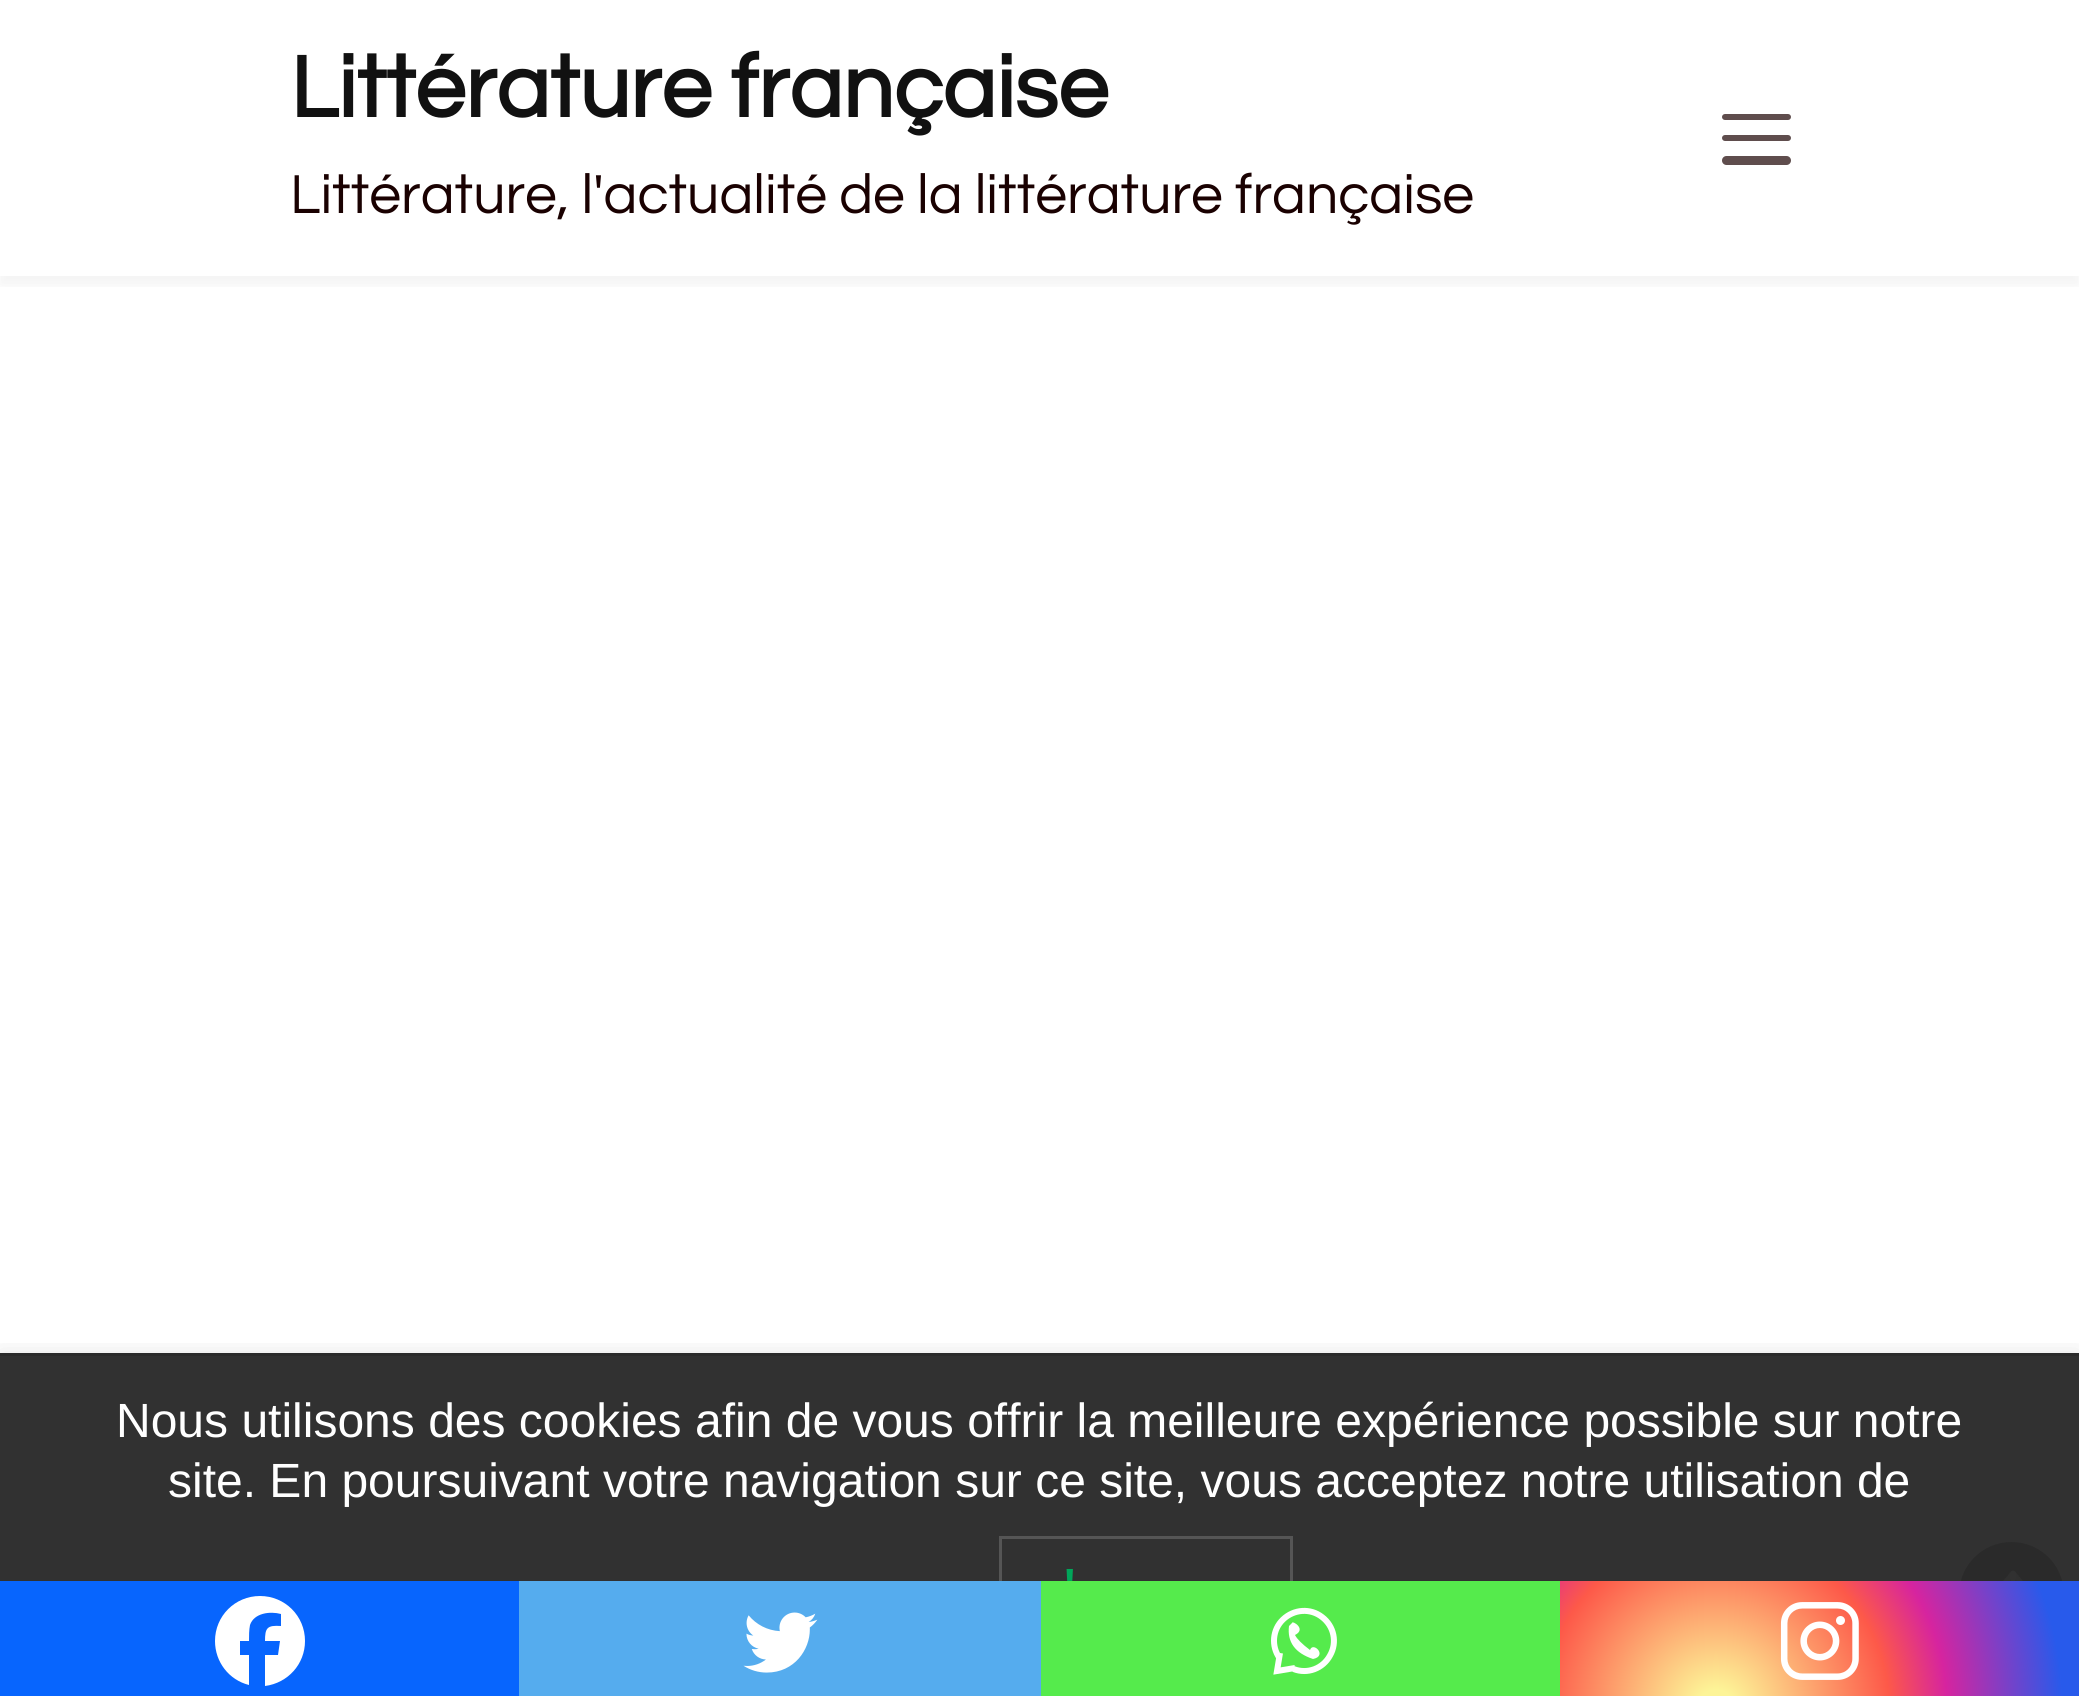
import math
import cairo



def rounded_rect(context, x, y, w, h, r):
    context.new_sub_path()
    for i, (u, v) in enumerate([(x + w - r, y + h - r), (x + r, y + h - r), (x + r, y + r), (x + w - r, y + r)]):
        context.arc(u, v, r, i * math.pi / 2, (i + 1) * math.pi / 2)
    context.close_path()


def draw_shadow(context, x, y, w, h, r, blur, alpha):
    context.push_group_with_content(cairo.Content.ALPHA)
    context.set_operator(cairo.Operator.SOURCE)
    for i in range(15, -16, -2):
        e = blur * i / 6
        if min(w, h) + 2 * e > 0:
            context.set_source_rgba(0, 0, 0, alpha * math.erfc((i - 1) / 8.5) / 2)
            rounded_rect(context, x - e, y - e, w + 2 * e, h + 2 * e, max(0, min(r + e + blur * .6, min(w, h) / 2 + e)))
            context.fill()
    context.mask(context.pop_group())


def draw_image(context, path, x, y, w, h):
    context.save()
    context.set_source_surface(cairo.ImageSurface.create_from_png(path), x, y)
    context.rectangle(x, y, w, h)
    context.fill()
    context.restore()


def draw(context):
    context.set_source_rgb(1, 1, 1)
    context.paint()
    context.set_source_rgb(49 / 255, 49 / 255, 49 / 255)
    context.rectangle(0, 1356, 2079, 225)
    context.fill()
    context.save()
    context.rectangle(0, 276, 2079, 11)
    context.clip()
    context.set_source_rgb(0, 0, 0)
    draw_shadow(context, 0, 9, 2079, 276, 0, 7.5, 0.05)
    context.restore()
    context.set_source_rgb(95 / 255, 77 / 255, 77 / 255)
    rounded_rect(context, 1722, 114, 69, 6, 3)
    context.fill()
    rounded_rect(context, 1722, 135, 69, 6, 3)
    context.fill()
    rounded_rect(context, 1722, 156, 69, 9, 4.5)
    context.fill()
    context.set_source_rgb(42 / 255, 42 / 255, 42 / 255)
    context.arc(2011.5, 1594.5, 52.5, 0, 2 * math.pi)
    context.fill()
    context.new_path()
    context.move_to(2013, 1613)
    context.line_to(2013, 1573.5)
    context.set_source_rgb(49 / 255, 49 / 255, 49 / 255)
    context.set_line_width(5)
    context.set_line_cap(cairo.LineCap.ROUND)
    context.stroke()
    context.new_path()
    context.move_to(1998, 1591)
    context.line_to(2013, 1573)
    context.line_to(2028, 1591)
    context.set_source_rgba(49 / 255, 49 / 255, 49 / 255, 0.9)
    context.set_line_join(cairo.LineJoin.ROUND)
    context.stroke()
    context.save()
    context.rectangle(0, 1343, 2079, 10)
    context.clip()
    context.set_source_rgb(0, 0, 0)
    draw_shadow(context, 0, 1353, 2079, 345, 0, 12, 0.1)
    context.restore()
    context.set_source_rgb(7 / 255, 101 / 255, 254 / 255)
    context.rectangle(0, 1581, 519, 115)
    context.fill()
    context.set_source_rgb(1, 1, 1)
    context.new_path()
    context.move_to(305, 1641)
    context.curve_to(305, 1616, 285, 1596, 260, 1596)
    context.curve_to(235, 1596, 215, 1616, 215, 1641)
    context.curve_to(215, 1662, 229, 1680, 249, 1685)
    context.line_to(249, 1655)
    context.line_to(240, 1655)
    context.line_to(240, 1641)
    context.line_to(249, 1641)
    context.curve_to(249, 1636, 249, 1630, 250, 1625)
    context.curve_to(254, 1613, 270, 1611, 281, 1614)
    context.line_to(281, 1626)
    context.curve_to(267, 1625, 265, 1628, 265, 1641)
    context.line_to(280, 1641)
    context.line_to(278, 1655)
    context.line_to(265, 1655)
    context.line_to(265, 1686)
    context.curve_to(288, 1683, 305, 1664, 305, 1641)
    context.close_path()
    context.fill()
    context.rectangle(1000.5, 1537.5, 291, 99)
    context.set_source_rgb(85 / 255, 85 / 255, 85 / 255)
    context.set_line_width(3)
    context.set_line_cap(cairo.LineCap.BUTT)
    context.set_line_join(cairo.LineJoin.MITER)
    context.stroke()
    context.set_source_rgb(85 / 255, 172 / 255, 238 / 255)
    context.rectangle(519, 1581, 522, 115)
    context.fill()
    draw_image(context, "images/1.png", 743, 1612, 75, 61)
    context.set_source_rgb(85 / 255, 235 / 255, 76 / 255)
    context.rectangle(1041, 1581, 519, 115)
    context.fill()
    context.new_path()
    context.move_to(1293.5, 1669)
    context.curve_to(1307.5, 1674.5, 1323, 1668.5, 1330, 1655.5)
    context.curve_to(1337.5, 1642.5, 1334, 1626, 1322, 1617)
    context.curve_to(1310.5, 1608, 1294, 1609, 1283, 1619.5)
    context.curve_to(1272.5, 1629.5, 1271, 1646, 1279.5, 1658)
    context.set_source_rgb(1, 1, 1)
    context.set_line_width(6)
    context.stroke()
    context.new_path()
    context.move_to(1280, 1653)
    context.line_to(1277, 1671)
    context.line_to(1295, 1668)
    context.stroke()
    context.new_path()
    context.move_to(1289, 1626)
    context.curve_to(1287, 1642, 1295, 1653, 1313, 1659)
    context.curve_to(1328, 1656, 1313, 1641, 1310, 1650)
    context.curve_to(1302, 1644, 1297, 1639, 1295, 1635)
    context.curve_to(1307, 1629, 1292, 1620, 1292, 1623)
    context.fill()
    gradient = cairo.RadialGradient(1716, 1709, 0, 1716, 1709, 385)
    gradient.add_color_stop_rgba(0, 253 / 255, 244 / 255, 151 / 255, 1)
    gradient.add_color_stop_rgba(0.05, 253 / 255, 244 / 255, 151 / 255, 1)
    gradient.add_color_stop_rgba(0.45, 253 / 255, 89 / 255, 73 / 255, 1)
    gradient.add_color_stop_rgba(0.6, 214 / 255, 36 / 255, 159 / 255, 1)
    gradient.add_color_stop_rgba(0.9, 40 / 255, 90 / 255, 235 / 255, 1)
    context.set_source(gradient)
    context.rectangle(1560, 1581, 519, 115)
    context.fill()
    draw_image(context, "images/2.png", 1780, 1602, 79, 78)
    context.set_source_rgb(43 / 255, 43 / 255, 43 / 255)
    context.rectangle(0, 1353, 2079, 3)
    context.fill()
    context.select_font_face("Questrial", cairo.FontSlant.NORMAL, cairo.FontWeight.BOLD)
    context.set_font_size(90)
    context.set_source_rgb(17 / 255, 17 / 255, 17 / 255)
    context.move_to(290, 117)
    context.show_text("Littérature française")
    context.select_font_face("Questrial")
    context.set_font_size(57)
    context.set_source_rgb(26 / 255, 1 / 255, 1 / 255)
    context.move_to(290, 213)
    context.show_text("Littérature, l'actualité de la littérature française")
    context.select_font_face("Liberation Sans")
    context.set_font_size(48)
    context.set_source_rgb(1, 1, 1)
    context.move_to(116, 1437)
    context.show_text("Nous utilisons des cookies afin de vous offrir la meilleure expérience possible sur notre")
    context.move_to(168, 1497)
    context.show_text("site. En poursuivant votre navigation sur ce site, vous acceptez notre utilisation de")
    context.select_font_face("Liberation Sans", cairo.FontSlant.NORMAL, cairo.FontWeight.BOLD)
    context.set_source_rgb(0, 166 / 255, 90 / 255)
    context.move_to(1064, 1602)
    context.show_text("'")


surface = cairo.ImageSurface(cairo.Format.RGB24, 2079, 1696)
context = cairo.Context(surface)
options = cairo.FontOptions()
options.set_hint_metrics(cairo.HintMetrics.OFF)
options.set_hint_style(cairo.HintStyle.NONE)
context.set_font_options(options)
context.set_miter_limit(4)
draw(context)
surface.write_to_png("out.png")
